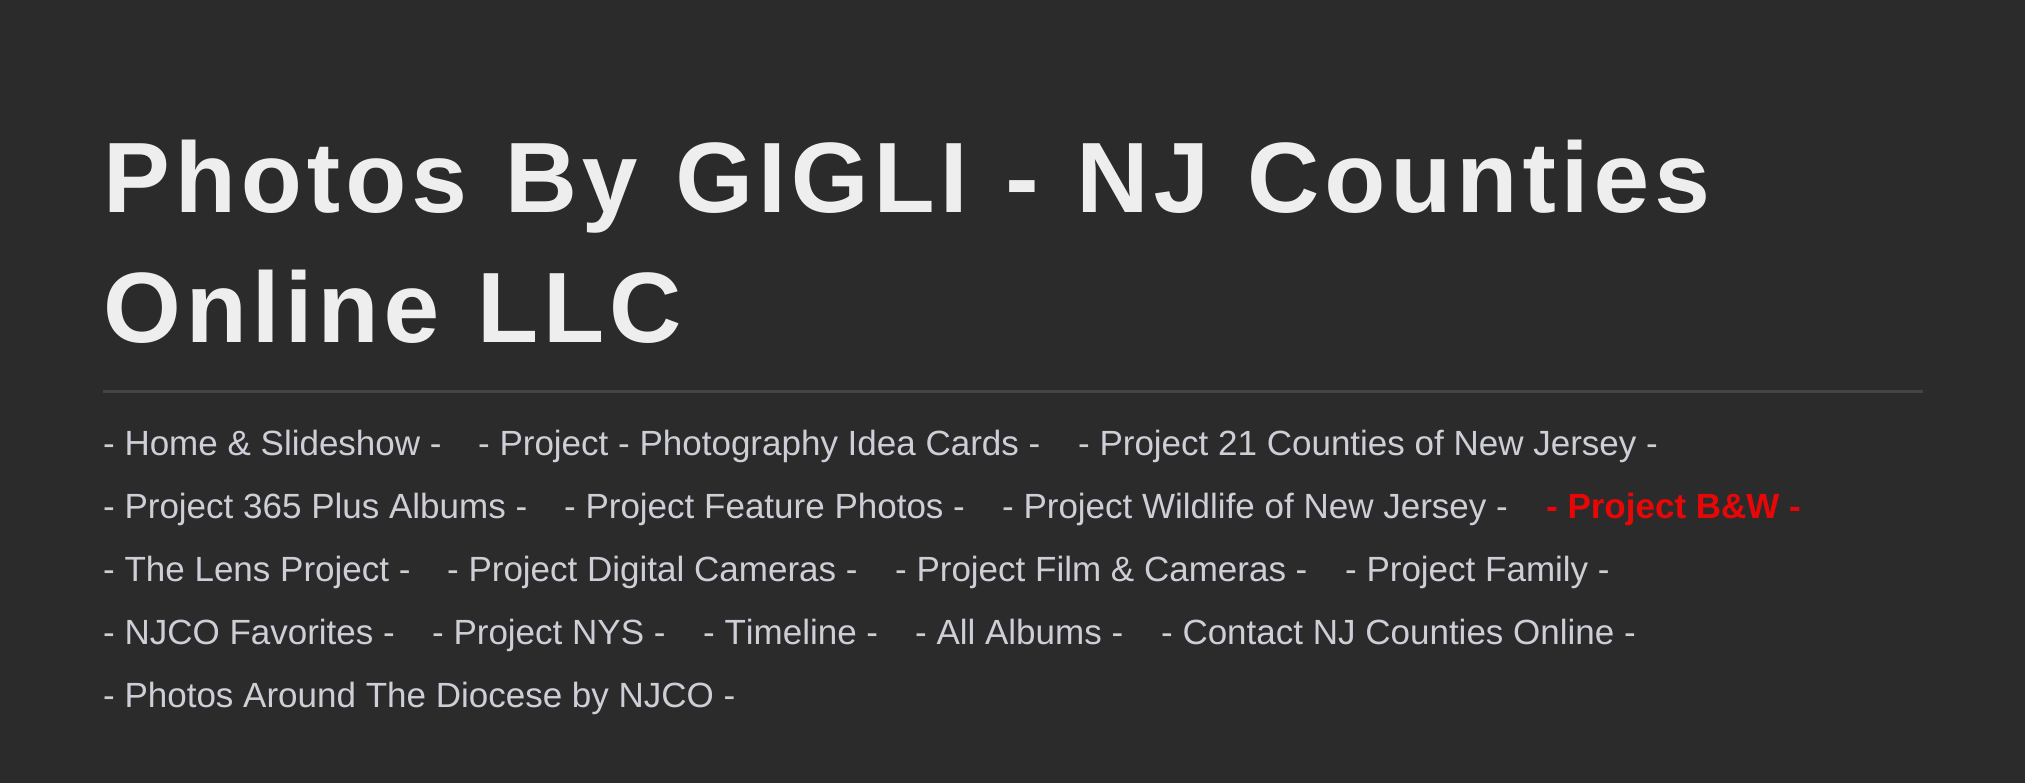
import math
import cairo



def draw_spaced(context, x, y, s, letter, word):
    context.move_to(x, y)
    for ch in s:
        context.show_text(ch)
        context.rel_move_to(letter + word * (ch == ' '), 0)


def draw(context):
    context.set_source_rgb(43 / 255, 43 / 255, 43 / 255)
    context.paint()
    context.set_source_rgb(68 / 255, 68 / 255, 68 / 255)
    context.rectangle(103, 390, 1820, 3)
    context.fill()
    context.select_font_face("Liberation Sans", cairo.FontSlant.NORMAL, cairo.FontWeight.BOLD)
    context.set_font_size(100)
    context.set_source_rgb(238 / 255, 238 / 255, 238 / 255)
    draw_spaced(context, 103, 212, "Photos By GIGLI - NJ Counties", 5, 0)
    draw_spaced(context, 103, 342, "Online LLC", 5, 0)
    context.select_font_face("Liberation Sans")
    context.set_font_size(35)
    context.set_source_rgb(206 / 255, 206 / 255, 215 / 255)
    context.move_to(103, 455)
    context.show_text("- Home & Slideshow -")
    context.move_to(478, 455)
    context.show_text("- Project - Photography Idea Cards -")
    context.move_to(1078, 455)
    context.show_text("- Project 21 Counties of New Jersey -")
    context.move_to(103, 518)
    context.show_text("- Project 365 Plus Albums -")
    context.move_to(564, 518)
    context.show_text("- Project Feature Photos -")
    context.move_to(1002, 518)
    context.show_text("- Project Wildlife of New Jersey -")
    context.select_font_face("Liberation Sans", cairo.FontSlant.NORMAL, cairo.FontWeight.BOLD)
    context.set_source_rgb(232 / 255, 6 / 255, 6 / 255)
    context.move_to(1546, 518)
    context.show_text("- Project B&W -")
    context.select_font_face("Liberation Sans")
    context.set_source_rgb(206 / 255, 206 / 255, 215 / 255)
    context.move_to(103, 581)
    context.show_text("- The Lens Project -")
    context.move_to(447, 581)
    context.show_text("- Project Digital Cameras -")
    context.move_to(895, 581)
    context.show_text("- Project Film & Cameras -")
    context.move_to(1345, 581)
    context.show_text("- Project Family -")
    context.move_to(103, 644)
    context.show_text("- NJCO Favorites -")
    context.move_to(432, 644)
    context.show_text("- Project NYS -")
    context.move_to(703, 644)
    context.show_text("- Timeline -")
    context.move_to(915, 644)
    context.show_text("- All Albums -")
    context.move_to(1161, 644)
    context.show_text("- Contact NJ Counties Online -")
    context.move_to(103, 707)
    context.show_text("- Photos Around The Diocese by NJCO -")


surface = cairo.ImageSurface(cairo.Format.RGB24, 2025, 783)
context = cairo.Context(surface)
options = cairo.FontOptions()
options.set_hint_metrics(cairo.HintMetrics.OFF)
options.set_hint_style(cairo.HintStyle.NONE)
context.set_font_options(options)
context.set_miter_limit(4)
draw(context)
surface.write_to_png("out.png")
